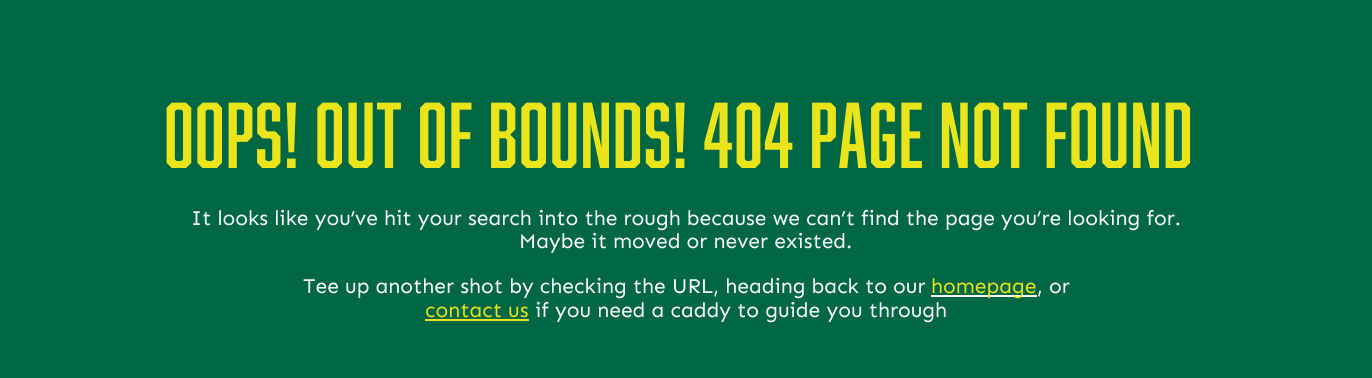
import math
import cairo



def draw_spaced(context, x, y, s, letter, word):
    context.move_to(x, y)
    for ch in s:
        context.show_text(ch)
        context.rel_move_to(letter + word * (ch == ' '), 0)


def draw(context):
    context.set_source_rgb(0, 103 / 255, 69 / 255)
    context.paint()
    context.set_source_rgb(1, 1, 1)
    context.rectangle(931, 295, 106, 2)
    context.fill()
    context.set_source_rgb(234 / 255, 228 / 255, 27 / 255)
    context.rectangle(425, 319, 104, 2)
    context.fill()
    context.select_font_face("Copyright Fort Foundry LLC")
    context.set_font_size(86)
    draw_spaced(context, 164, 168, "Oops! Out of Bounds! 404 Page not Found", 1, 0)
    context.select_font_face("Sen")
    context.set_font_size(21)
    context.set_source_rgb(1, 1, 1)
    context.move_to(191, 225)
    context.show_text("It looks like you’ve hit your search into the rough because we can’t find the page you’re looking for.")
    context.move_to(519, 248)
    context.show_text("Maybe it moved or never existed.")
    context.move_to(303, 293)
    context.show_text("Tee up another shot by checking the URL, heading back to our")
    context.set_source_rgb(234 / 255, 228 / 255, 27 / 255)
    context.move_to(931, 293)
    context.show_text("homepage")
    context.set_source_rgb(1, 1, 1)
    context.move_to(1037, 293)
    context.show_text(", or")
    context.set_source_rgb(234 / 255, 228 / 255, 27 / 255)
    context.move_to(425, 317)
    context.show_text("contact us")
    context.set_source_rgb(1, 1, 1)
    context.move_to(535, 317)
    context.show_text("if you need a caddy to guide you through")


surface = cairo.ImageSurface(cairo.Format.RGB24, 1372, 378)
context = cairo.Context(surface)
options = cairo.FontOptions()
options.set_hint_metrics(cairo.HintMetrics.OFF)
options.set_hint_style(cairo.HintStyle.NONE)
context.set_font_options(options)
context.set_miter_limit(4)
draw(context)
surface.write_to_png("out.png")
